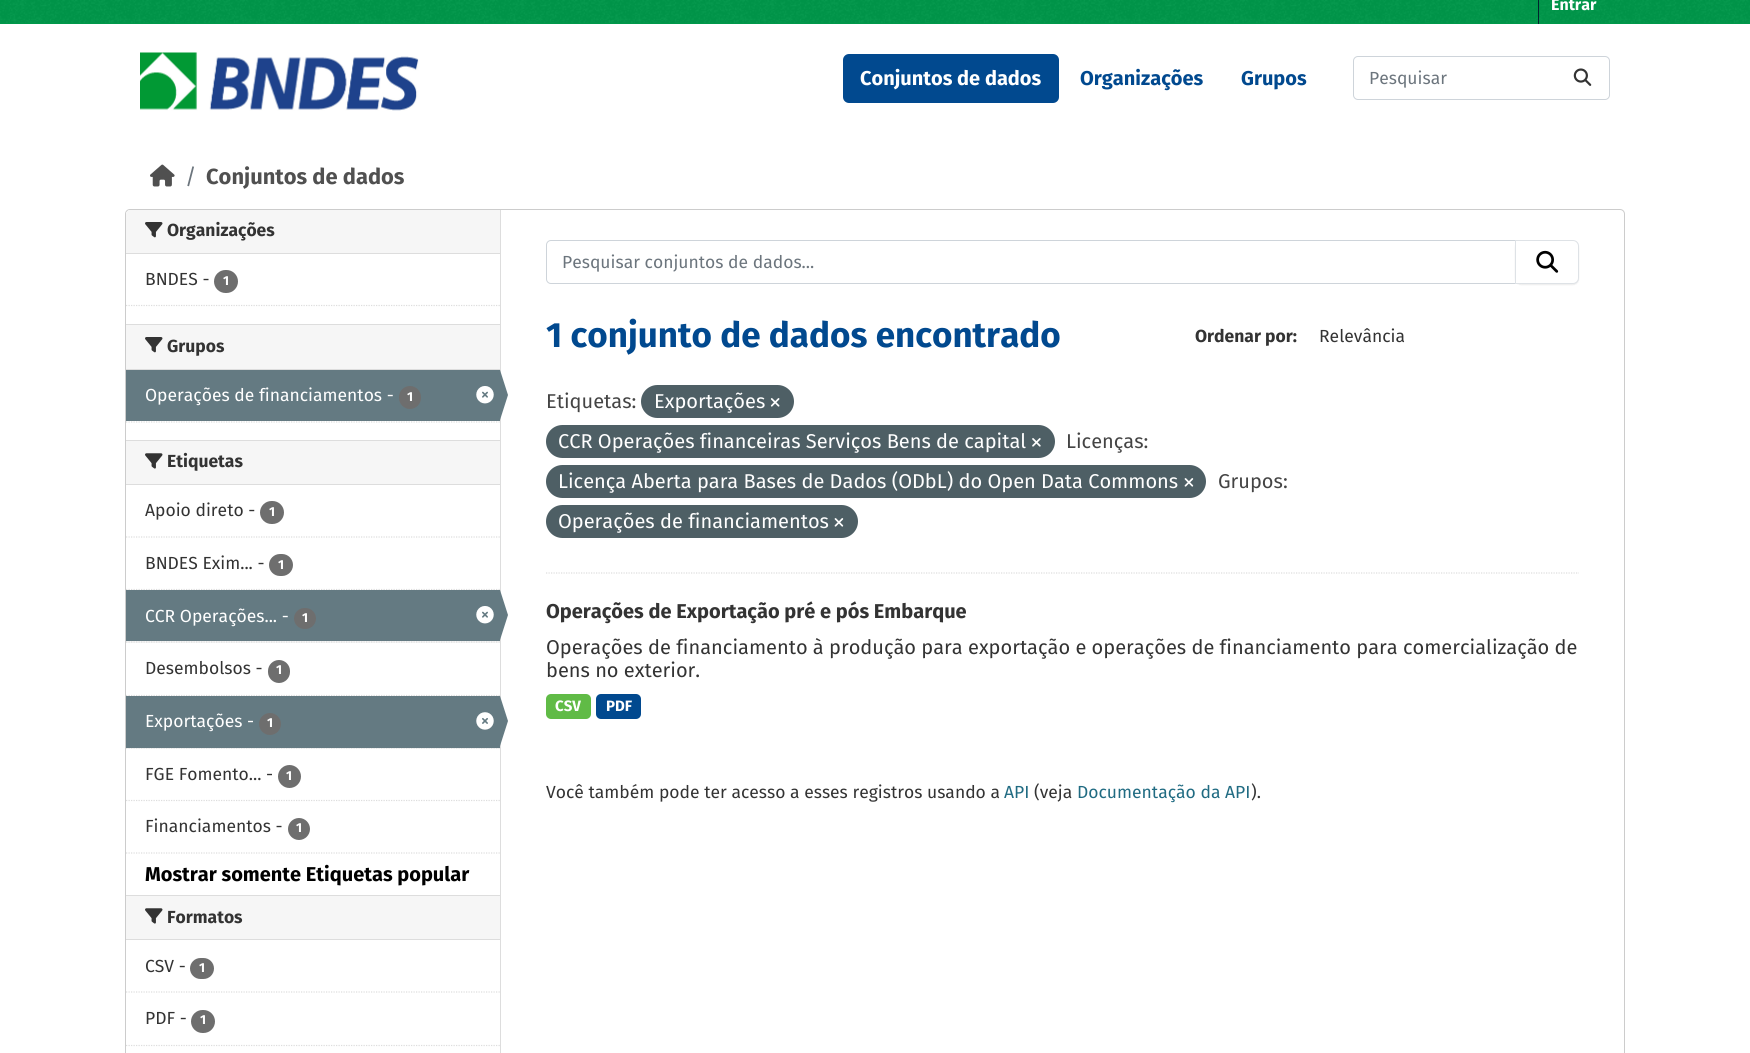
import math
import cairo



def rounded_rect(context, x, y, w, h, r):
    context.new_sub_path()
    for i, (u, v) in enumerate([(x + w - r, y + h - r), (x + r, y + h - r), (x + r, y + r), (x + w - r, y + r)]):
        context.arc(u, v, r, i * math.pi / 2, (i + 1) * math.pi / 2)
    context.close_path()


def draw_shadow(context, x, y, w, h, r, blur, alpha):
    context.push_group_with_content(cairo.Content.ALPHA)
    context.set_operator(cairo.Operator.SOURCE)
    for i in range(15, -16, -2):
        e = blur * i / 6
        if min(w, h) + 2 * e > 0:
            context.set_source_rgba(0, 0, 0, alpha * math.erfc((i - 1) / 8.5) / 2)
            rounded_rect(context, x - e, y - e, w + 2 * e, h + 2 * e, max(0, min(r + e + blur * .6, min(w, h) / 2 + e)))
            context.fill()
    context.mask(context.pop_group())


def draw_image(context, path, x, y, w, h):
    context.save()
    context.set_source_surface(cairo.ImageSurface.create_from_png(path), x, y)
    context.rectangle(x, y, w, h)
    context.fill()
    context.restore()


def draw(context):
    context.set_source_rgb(1, 1, 1)
    context.paint()
    context.set_source_rgb(0, 152 / 255, 74 / 255)
    context.rectangle(0, 0, 1750, 24)
    context.fill()
    draw_image(context, "images/1.png", 0, 0, 1750, 23)
    context.set_source_rgb(0, 35 / 255, 46 / 255)
    context.rectangle(1538, 0, 1, 24)
    context.fill()
    draw_image(context, "images/2.png", 140, 52, 279, 59)
    context.set_source_rgb(1 / 255, 73 / 255, 143 / 255)
    rounded_rect(context, 843, 54, 216, 49, 6)
    context.fill()
    rounded_rect(context, 1353.5, 56.5, 256, 43, 4.5)
    context.set_source_rgb(206 / 255, 212 / 255, 218 / 255)
    context.set_line_width(1)
    context.stroke()
    draw_image(context, "images/3.png", 1573, 68, 19, 18)
    draw_image(context, "images/4.png", 150, 164, 25, 23)
    rounded_rect(context, 125.5, 209.5, 1499, 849, 4.5)
    context.set_source_rgb(204 / 255, 204 / 255, 204 / 255)
    context.stroke()
    context.set_source_rgb(246 / 255, 246 / 255, 246 / 255)
    context.new_path()
    context.move_to(130, 210)
    context.line_to(500, 210)
    context.line_to(500, 254)
    context.line_to(126, 254)
    context.line_to(126, 214)
    context.curve_to(126, 212, 128, 210, 130, 210)
    context.close_path()
    context.fill()
    context.set_source_rgb(221 / 255, 221 / 255, 221 / 255)
    context.rectangle(126, 253, 374, 1)
    context.fill()
    draw_image(context, "images/5.png", 145, 222, 18, 16)
    context.set_source_rgb(110 / 255, 110 / 255, 110 / 255)
    rounded_rect(context, 214, 270, 24, 23, 11.5)
    context.fill()
    context.new_path()
    context.move_to(126, 305.5)
    context.line_to(500, 305.5)
    context.set_source_rgb(221 / 255, 221 / 255, 221 / 255)
    context.set_line_width(1.2)
    context.set_dash([1.25, 1.25])
    context.stroke()
    context.set_source_rgb(246 / 255, 246 / 255, 246 / 255)
    context.rectangle(126, 325, 374, 44)
    context.fill()
    context.set_source_rgb(221 / 255, 221 / 255, 221 / 255)
    context.rectangle(126, 324, 374, 1)
    context.fill()
    context.rectangle(126, 369, 374, 1)
    context.fill()
    draw_image(context, "images/5.png", 145, 337, 18, 16)
    context.set_source_rgb(100 / 255, 122 / 255, 130 / 255)
    context.rectangle(126, 370, 374, 51)
    context.fill()
    context.set_source_rgb(110 / 255, 110 / 255, 110 / 255)
    rounded_rect(context, 399, 386, 22, 23, 11)
    context.fill()
    draw_image(context, "images/6.png", 476, 386, 18, 18)
    context.set_source_rgb(221 / 255, 221 / 255, 221 / 255)
    context.rectangle(500, 210, 1, 843)
    context.fill()
    context.set_source_rgb(100 / 255, 122 / 255, 130 / 255)
    context.new_path()
    context.move_to(500, 420)
    context.line_to(500, 370)
    context.line_to(508, 395)
    context.close_path()
    context.fill()
    context.new_path()
    context.move_to(126, 422)
    context.line_to(500, 422)
    context.set_source_rgb(221 / 255, 221 / 255, 221 / 255)
    context.stroke()
    context.set_source_rgb(246 / 255, 246 / 255, 246 / 255)
    context.rectangle(126, 441, 374, 43)
    context.fill()
    context.set_source_rgb(221 / 255, 221 / 255, 221 / 255)
    context.rectangle(126, 440, 374, 1)
    context.fill()
    context.rectangle(126, 484, 374, 1)
    context.fill()
    draw_image(context, "images/7.png", 145, 453, 18, 16)
    context.new_path()
    context.move_to(126, 537)
    context.line_to(500, 537)
    context.stroke()
    context.set_source_rgb(110 / 255, 110 / 255, 110 / 255)
    rounded_rect(context, 260, 501, 24, 23, 11.5)
    context.fill()
    context.new_path()
    context.move_to(126, 589.5)
    context.line_to(500, 589.5)
    context.set_source_rgb(221 / 255, 221 / 255, 221 / 255)
    context.stroke()
    context.set_source_rgb(110 / 255, 110 / 255, 110 / 255)
    rounded_rect(context, 269, 554, 24, 22, 11)
    context.fill()
    context.set_source_rgb(246 / 255, 246 / 255, 246 / 255)
    context.rectangle(126, 641, 374, 2)
    context.fill()
    context.new_path()
    context.move_to(126, 642)
    context.line_to(500, 642)
    context.set_source_rgb(221 / 255, 221 / 255, 221 / 255)
    context.stroke()
    context.set_source_rgb(100 / 255, 122 / 255, 130 / 255)
    context.rectangle(126, 590, 374, 51)
    context.fill()
    context.set_source_rgb(110 / 255, 110 / 255, 110 / 255)
    rounded_rect(context, 294, 608, 22, 21, 10.5)
    context.fill()
    draw_image(context, "images/6.png", 476, 606, 18, 18)
    context.set_source_rgb(100 / 255, 122 / 255, 130 / 255)
    context.new_path()
    context.move_to(500, 640)
    context.line_to(500, 590)
    context.line_to(508, 615)
    context.close_path()
    context.fill()
    context.new_path()
    context.move_to(126, 695.5)
    context.line_to(500, 695.5)
    context.set_source_rgb(221 / 255, 221 / 255, 221 / 255)
    context.stroke()
    context.set_source_rgb(110 / 255, 110 / 255, 110 / 255)
    rounded_rect(context, 268, 660, 22, 23, 11)
    context.fill()
    context.set_source_rgb(246 / 255, 246 / 255, 246 / 255)
    context.rectangle(126, 748, 374, 1)
    context.fill()
    context.new_path()
    context.move_to(126, 748)
    context.line_to(500, 748)
    context.set_source_rgb(221 / 255, 221 / 255, 221 / 255)
    context.stroke()
    context.set_source_rgb(100 / 255, 122 / 255, 130 / 255)
    context.rectangle(126, 696, 374, 52)
    context.fill()
    context.set_source_rgb(110 / 255, 110 / 255, 110 / 255)
    context.arc(270, 724, 11, 0, 2 * math.pi)
    context.fill()
    draw_image(context, "images/8.png", 476, 712, 18, 18)
    context.set_source_rgb(100 / 255, 122 / 255, 130 / 255)
    context.new_path()
    context.move_to(500, 746)
    context.line_to(500, 696)
    context.line_to(508, 721)
    context.close_path()
    context.fill()
    context.new_path()
    context.move_to(126, 800.5)
    context.line_to(500, 800.5)
    context.set_source_rgb(221 / 255, 221 / 255, 221 / 255)
    context.stroke()
    context.set_source_rgb(110 / 255, 110 / 255, 110 / 255)
    context.arc(289.5, 776.5, 11.5, 0, 2 * math.pi)
    context.fill()
    context.arc(299, 829, 11, 0, 2 * math.pi)
    context.fill()
    context.new_path()
    context.move_to(126, 853)
    context.line_to(500, 853)
    context.set_source_rgb(221 / 255, 221 / 255, 221 / 255)
    context.stroke()
    context.set_source_rgb(246 / 255, 246 / 255, 246 / 255)
    context.rectangle(126, 896, 374, 43)
    context.fill()
    context.set_source_rgb(221 / 255, 221 / 255, 221 / 255)
    context.rectangle(126, 895, 374, 1)
    context.fill()
    context.rectangle(126, 939, 374, 1)
    context.fill()
    draw_image(context, "images/7.png", 145, 908, 18, 16)
    context.new_path()
    context.move_to(126, 992)
    context.line_to(500, 992)
    context.stroke()
    context.set_source_rgb(110 / 255, 110 / 255, 110 / 255)
    rounded_rect(context, 190, 958, 24, 21, 10.5)
    context.fill()
    rounded_rect(context, 191, 1010, 24, 23, 11.5)
    context.fill()
    context.new_path()
    context.move_to(126, 1045.5)
    context.line_to(500, 1045.5)
    context.set_source_rgb(221 / 255, 221 / 255, 221 / 255)
    context.stroke()
    context.new_path()
    context.move_to(546, 573)
    context.line_to(1579, 573)
    context.stroke()
    context.new_path()
    context.move_to(551, 240.5)
    context.line_to(1515.5, 240.5)
    context.line_to(1515.5, 283.5)
    context.line_to(551, 283.5)
    context.curve_to(548.5, 283.5, 546.5, 281.5, 546.5, 279)
    context.line_to(546.5, 245)
    context.curve_to(546.5, 242.5, 548.5, 240.5, 551, 240.5)
    context.close_path()
    context.set_source_rgb(206 / 255, 212 / 255, 218 / 255)
    context.set_line_width(1)
    context.set_dash([])
    context.stroke()
    context.set_source_rgb(0, 0, 0)
    draw_shadow(context, 1515, 241, 64, 44, 6, 0.5, 0.07)
    context.set_source_rgb(1, 1, 1)
    context.new_path()
    context.move_to(1515.5, 240.5)
    context.line_to(1573, 240.5)
    context.curve_to(1576, 240.5, 1578.5, 243, 1578.5, 246)
    context.line_to(1578.5, 278)
    context.curve_to(1578.5, 281, 1576, 283.5, 1573, 283.5)
    context.line_to(1515.5, 283.5)
    context.close_path()
    context.fill_preserve()
    context.set_source_rgb(222 / 255, 226 / 255, 230 / 255)
    context.stroke()
    draw_image(context, "images/9.png", 1536, 250, 23, 23)
    context.set_source_rgb(78 / 255, 95 / 255, 101 / 255)
    rounded_rect(context, 641, 385, 153, 33, 16.5)
    context.fill()
    draw_image(context, "images/10.png", 770, 398, 10, 9)
    rounded_rect(context, 546, 425, 509, 33, 16.5)
    context.fill()
    draw_image(context, "images/11.png", 1032, 438, 9, 9)
    rounded_rect(context, 546, 465, 660, 33, 16.5)
    context.fill()
    draw_image(context, "images/12.png", 1184, 478, 10, 9)
    rounded_rect(context, 546, 505, 312, 33, 16.5)
    context.fill()
    draw_image(context, "images/12.png", 834, 518, 10, 9)
    context.set_source_rgb(96 / 255, 187 / 255, 70 / 255)
    rounded_rect(context, 546, 694, 45, 25, 5)
    context.fill()
    context.set_source_rgb(1 / 255, 73 / 255, 143 / 255)
    rounded_rect(context, 596, 694, 45, 25, 5)
    context.fill()
    context.select_font_face("Fira Sans", cairo.FontSlant.NORMAL, cairo.FontWeight.BOLD)
    context.set_font_size(16)
    context.set_source_rgb(1, 1, 1)
    context.move_to(1551, 10)
    context.show_text("Entrar")
    context.set_font_size(20)
    context.move_to(860, 85)
    context.show_text("Conjuntos de dados")
    context.set_source_rgb(1 / 255, 73 / 255, 143 / 255)
    context.move_to(1080, 85)
    context.show_text("Organizações")
    context.move_to(1241, 85)
    context.show_text("Grupos")
    context.select_font_face("Fira Sans")
    context.set_font_size(17.5)
    context.set_source_rgb(108 / 255, 117 / 255, 125 / 255)
    context.move_to(1369, 84)
    context.show_text("Pesquisar")
    context.set_font_size(21.9)
    context.move_to(185, 184)
    context.show_text("/")
    context.select_font_face("Fira Sans", cairo.FontSlant.NORMAL, cairo.FontWeight.BOLD)
    context.set_source_rgb(80 / 255, 80 / 255, 80 / 255)
    context.move_to(206, 184)
    context.show_text("Conjuntos de dados")
    context.set_font_size(17.5)
    context.set_source_rgb(51 / 255, 51 / 255, 51 / 255)
    context.move_to(167, 236)
    context.show_text("Organizações")
    context.select_font_face("Fira Sans")
    context.move_to(145, 285)
    context.show_text("BNDES -")
    context.select_font_face("Fira Sans", cairo.FontSlant.NORMAL, cairo.FontWeight.BOLD)
    context.set_font_size(13)
    context.set_source_rgb(1, 1, 1)
    context.move_to(223, 285)
    context.show_text("1")
    context.set_font_size(17.5)
    context.set_source_rgb(51 / 255, 51 / 255, 51 / 255)
    context.move_to(167, 352)
    context.show_text("Grupos")
    context.select_font_face("Fira Sans")
    context.set_source_rgb(1, 1, 1)
    context.move_to(145, 401)
    context.show_text("Operações de financiamentos -")
    context.select_font_face("Fira Sans", cairo.FontSlant.NORMAL, cairo.FontWeight.BOLD)
    context.set_font_size(13)
    context.move_to(407, 401)
    context.show_text("1")
    context.set_font_size(17.5)
    context.set_source_rgb(51 / 255, 51 / 255, 51 / 255)
    context.move_to(167, 467)
    context.show_text("Etiquetas")
    context.select_font_face("Fira Sans")
    context.move_to(145, 516)
    context.show_text("Apoio direto -")
    context.select_font_face("Fira Sans", cairo.FontSlant.NORMAL, cairo.FontWeight.BOLD)
    context.set_font_size(13)
    context.set_source_rgb(1, 1, 1)
    context.move_to(269, 516)
    context.show_text("1")
    context.select_font_face("Fira Sans")
    context.set_font_size(17.5)
    context.set_source_rgb(51 / 255, 51 / 255, 51 / 255)
    context.move_to(145, 569)
    context.show_text("BNDES Exim... -")
    context.select_font_face("Fira Sans", cairo.FontSlant.NORMAL, cairo.FontWeight.BOLD)
    context.set_font_size(13)
    context.set_source_rgb(1, 1, 1)
    context.move_to(278, 569)
    context.show_text("1")
    context.select_font_face("Fira Sans")
    context.set_font_size(17.5)
    context.move_to(145, 622)
    context.show_text("CCR Operações... -")
    context.select_font_face("Fira Sans", cairo.FontSlant.NORMAL, cairo.FontWeight.BOLD)
    context.set_font_size(13)
    context.move_to(302, 622)
    context.show_text("1")
    context.select_font_face("Fira Sans")
    context.set_font_size(17.5)
    context.set_source_rgb(51 / 255, 51 / 255, 51 / 255)
    context.move_to(145, 674)
    context.show_text("Desembolsos -")
    context.select_font_face("Fira Sans", cairo.FontSlant.NORMAL, cairo.FontWeight.BOLD)
    context.set_font_size(13)
    context.set_source_rgb(1, 1, 1)
    context.move_to(276, 674)
    context.show_text("1")
    context.select_font_face("Fira Sans")
    context.set_font_size(17.5)
    context.move_to(145, 727)
    context.show_text("Exportações -")
    context.select_font_face("Fira Sans", cairo.FontSlant.NORMAL, cairo.FontWeight.BOLD)
    context.set_font_size(13)
    context.move_to(267, 727)
    context.show_text("1")
    context.select_font_face("Fira Sans")
    context.set_font_size(17.5)
    context.set_source_rgb(51 / 255, 51 / 255, 51 / 255)
    context.move_to(145, 780)
    context.show_text("FGE Fomento... -")
    context.select_font_face("Fira Sans", cairo.FontSlant.NORMAL, cairo.FontWeight.BOLD)
    context.set_font_size(13)
    context.set_source_rgb(1, 1, 1)
    context.move_to(286, 780)
    context.show_text("1")
    context.select_font_face("Fira Sans")
    context.set_font_size(17.5)
    context.set_source_rgb(51 / 255, 51 / 255, 51 / 255)
    context.move_to(145, 832)
    context.show_text("Financiamentos -")
    context.select_font_face("Fira Sans", cairo.FontSlant.NORMAL, cairo.FontWeight.BOLD)
    context.set_font_size(13)
    context.set_source_rgb(1, 1, 1)
    context.move_to(296, 832)
    context.show_text("1")
    context.set_font_size(20)
    context.set_source_rgb(0, 0, 0)
    context.move_to(145, 881)
    context.show_text("Mostrar somente Etiquetas popular")
    context.set_font_size(17.5)
    context.set_source_rgb(51 / 255, 51 / 255, 51 / 255)
    context.move_to(167, 923)
    context.show_text("Formatos")
    context.select_font_face("Fira Sans")
    context.move_to(145, 972)
    context.show_text("CSV -")
    context.select_font_face("Fira Sans", cairo.FontSlant.NORMAL, cairo.FontWeight.BOLD)
    context.set_font_size(13)
    context.set_source_rgb(1, 1, 1)
    context.move_to(199, 972)
    context.show_text("1")
    context.select_font_face("Fira Sans")
    context.set_font_size(17.5)
    context.set_source_rgb(51 / 255, 51 / 255, 51 / 255)
    context.move_to(145, 1024)
    context.show_text("PDF -")
    context.select_font_face("Fira Sans", cairo.FontSlant.NORMAL, cairo.FontWeight.BOLD)
    context.set_font_size(13)
    context.set_source_rgb(1, 1, 1)
    context.move_to(200, 1024)
    context.show_text("1")
    context.select_font_face("Fira Sans")
    context.set_font_size(17.5)
    context.set_source_rgb(108 / 255, 117 / 255, 125 / 255)
    context.move_to(562, 268)
    context.show_text("Pesquisar conjuntos de dados...")
    context.select_font_face("Fira Sans", cairo.FontSlant.NORMAL, cairo.FontWeight.BOLD)
    context.set_font_size(35)
    context.set_source_rgb(1 / 255, 73 / 255, 143 / 255)
    context.move_to(546, 347)
    context.show_text("1 conjunto de dados encontrado")
    context.set_font_size(17.5)
    context.set_source_rgb(51 / 255, 51 / 255, 51 / 255)
    context.move_to(1195, 342)
    context.show_text("Ordenar por:")
    context.select_font_face("Fira Sans")
    context.move_to(1319, 342)
    context.show_text("Relevância")
    context.set_font_size(20)
    context.set_source_rgb(68 / 255, 68 / 255, 68 / 255)
    context.move_to(546, 408)
    context.show_text("Etiquetas:")
    context.set_source_rgb(1, 1, 1)
    context.move_to(654, 408)
    context.show_text("Exportações")
    context.move_to(558, 448)
    context.show_text("CCR Operações financeiras Serviços Bens de capital")
    context.set_source_rgb(68 / 255, 68 / 255, 68 / 255)
    context.move_to(1066, 448)
    context.show_text("Licenças:")
    context.set_source_rgb(1, 1, 1)
    context.move_to(558, 488)
    context.show_text("Licença Aberta para Bases de Dados (ODbL) do Open Data Commons")
    context.set_source_rgb(68 / 255, 68 / 255, 68 / 255)
    context.move_to(1218, 488)
    context.show_text("Grupos:")
    context.set_source_rgb(1, 1, 1)
    context.move_to(558, 528)
    context.show_text("Operações de financiamentos")
    context.select_font_face("Fira Sans", cairo.FontSlant.NORMAL, cairo.FontWeight.BOLD)
    context.set_source_rgb(51 / 255, 51 / 255, 51 / 255)
    context.move_to(546, 618)
    context.show_text("Operações de Exportação pré e pós Embarque")
    context.select_font_face("Fira Sans")
    context.move_to(546, 654)
    context.show_text("Operações de financiamento à produção para exportação e operações de financiamento para comercialização de")
    context.move_to(546, 677)
    context.show_text("bens no exterior.")
    context.select_font_face("Fira Sans", cairo.FontSlant.NORMAL, cairo.FontWeight.BOLD)
    context.set_font_size(15)
    context.set_source_rgb(1, 1, 1)
    context.move_to(555, 711)
    context.show_text("CSV")
    context.move_to(606, 711)
    context.show_text("PDF")
    context.select_font_face("Fira Sans")
    context.set_font_size(17.5)
    context.set_source_rgb(51 / 255, 51 / 255, 51 / 255)
    context.move_to(546, 798)
    context.show_text("Você também pode ter acesso a esses registros usando a")
    context.set_source_rgb(32 / 255, 107 / 255, 130 / 255)
    context.move_to(1004, 798)
    context.show_text("API")
    context.set_source_rgb(51 / 255, 51 / 255, 51 / 255)
    context.move_to(1034, 798)
    context.show_text("(veja")
    context.set_source_rgb(32 / 255, 107 / 255, 130 / 255)
    context.move_to(1077, 798)
    context.show_text("Documentação da API")
    context.set_source_rgb(51 / 255, 51 / 255, 51 / 255)
    context.move_to(1251, 798)
    context.show_text(").")


surface = cairo.ImageSurface(cairo.Format.RGB24, 1750, 1053)
context = cairo.Context(surface)
options = cairo.FontOptions()
options.set_hint_metrics(cairo.HintMetrics.OFF)
options.set_hint_style(cairo.HintStyle.NONE)
context.set_font_options(options)
context.set_miter_limit(4)
draw(context)
surface.write_to_png("out.png")
